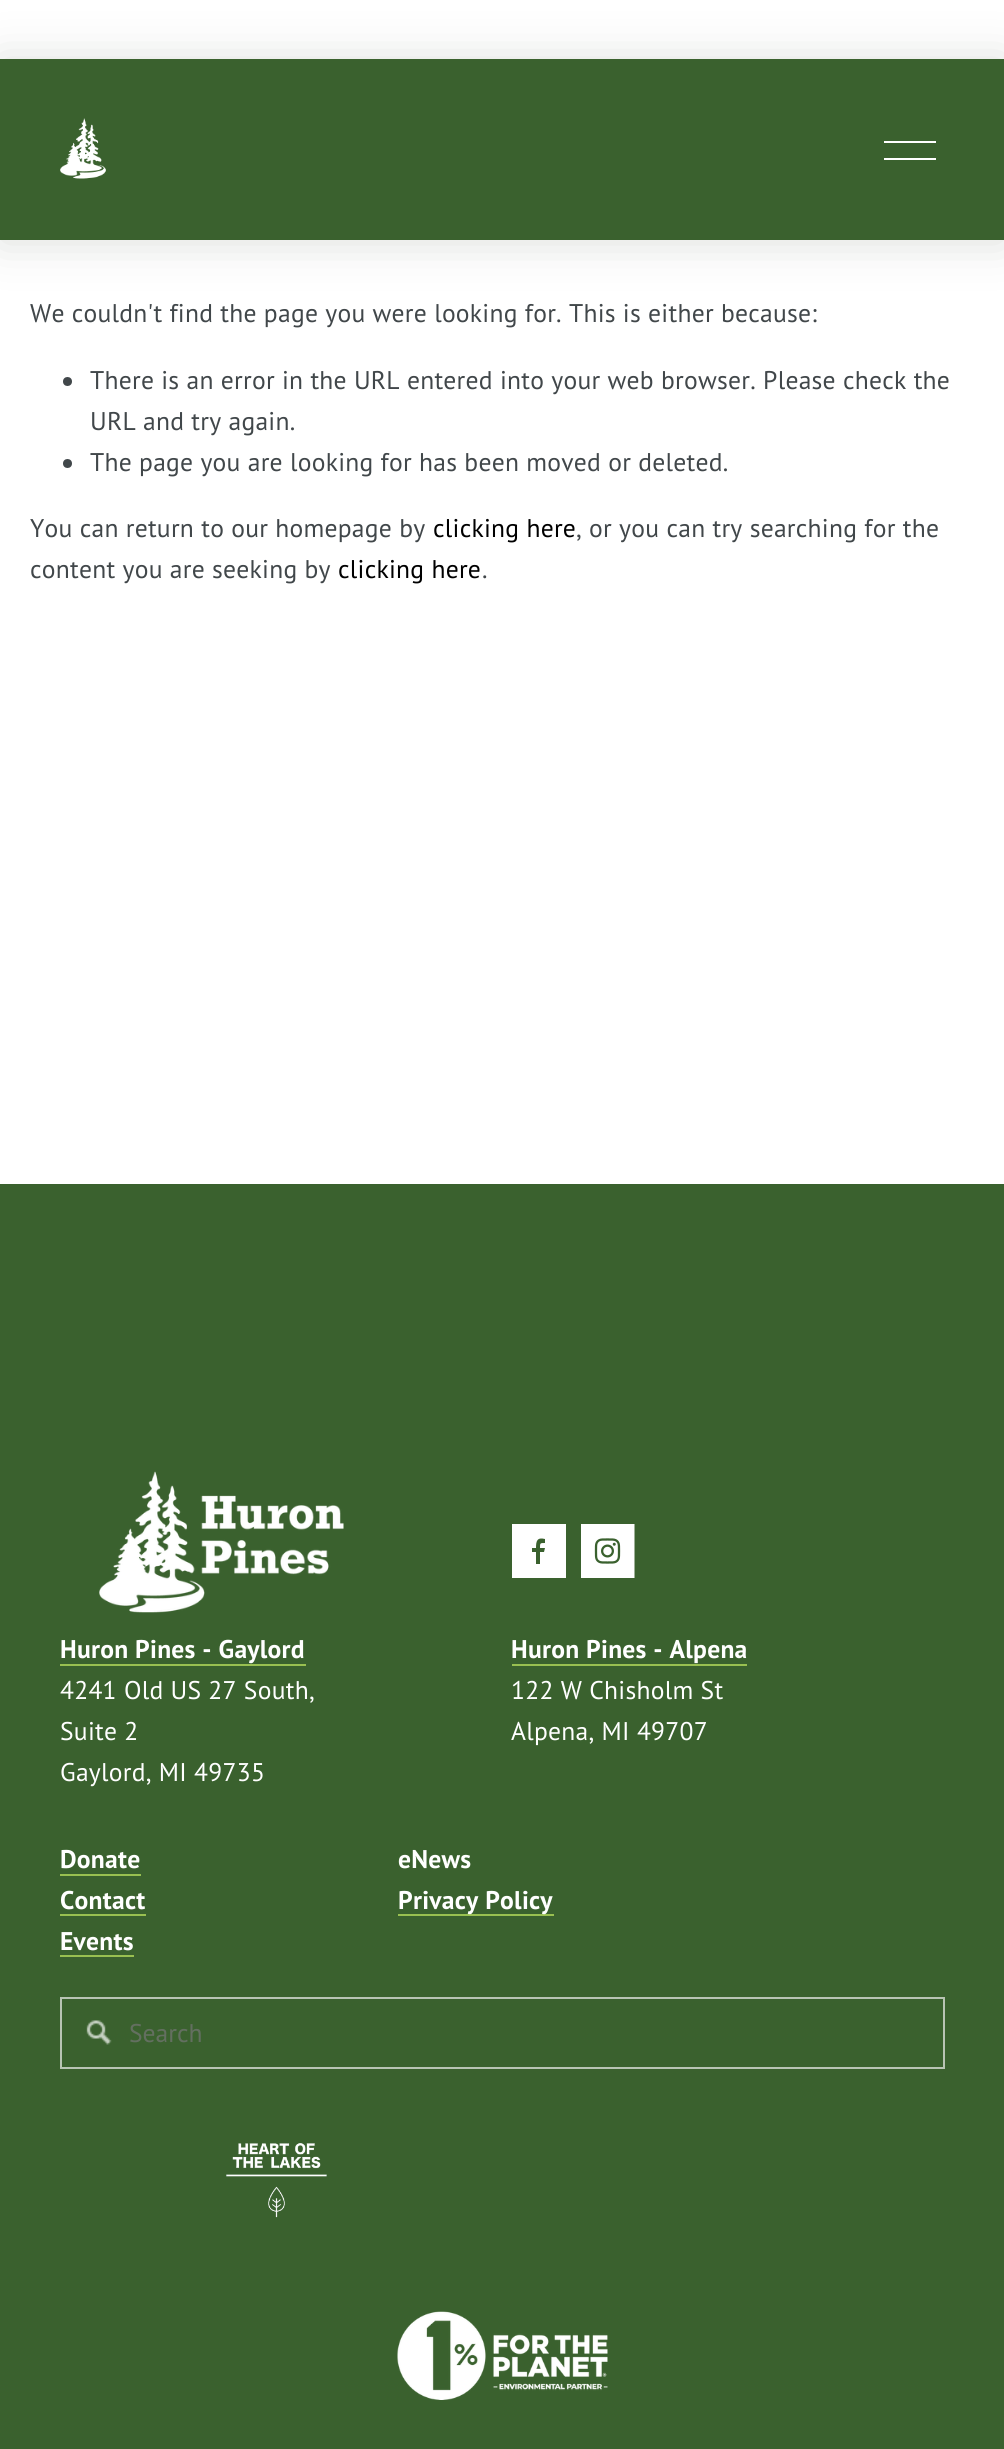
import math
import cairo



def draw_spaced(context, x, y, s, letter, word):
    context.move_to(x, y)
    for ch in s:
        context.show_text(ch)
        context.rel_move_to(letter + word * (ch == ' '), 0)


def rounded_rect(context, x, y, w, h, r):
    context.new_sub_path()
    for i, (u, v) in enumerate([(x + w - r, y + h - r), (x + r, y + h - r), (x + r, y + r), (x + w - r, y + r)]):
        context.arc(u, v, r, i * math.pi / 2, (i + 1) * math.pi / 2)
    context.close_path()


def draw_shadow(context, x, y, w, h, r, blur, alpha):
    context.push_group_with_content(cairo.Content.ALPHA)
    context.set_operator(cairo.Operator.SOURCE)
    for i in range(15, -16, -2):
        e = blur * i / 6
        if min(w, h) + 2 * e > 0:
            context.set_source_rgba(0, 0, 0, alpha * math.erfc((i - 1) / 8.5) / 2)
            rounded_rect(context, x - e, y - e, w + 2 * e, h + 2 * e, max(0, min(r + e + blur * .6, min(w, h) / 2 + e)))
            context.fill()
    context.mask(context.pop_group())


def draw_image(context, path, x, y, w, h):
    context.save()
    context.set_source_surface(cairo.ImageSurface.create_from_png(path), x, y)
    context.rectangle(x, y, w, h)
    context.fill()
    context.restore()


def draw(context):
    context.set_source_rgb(1, 1, 1)
    context.paint()
    context.set_source_rgb(221 / 255, 223 / 255, 220 / 255)
    draw_shadow(context, 0, 60, 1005, 182, 0, 22.5, 1)
    context.set_source_rgb(58 / 255, 97 / 255, 46 / 255)
    context.rectangle(0, 59, 1004, 181)
    context.fill()
    draw_image(context, "images/1.png", 60, 118, 46, 61)
    context.set_source_rgb(1, 1, 1)
    context.rectangle(884, 141, 52, 2)
    context.fill()
    context.rectangle(884, 158, 52, 2)
    context.fill()
    context.set_source_rgb(65 / 255, 71 / 255, 74 / 255)
    context.arc(67.5, 381.5, 4.5, 0, 2 * math.pi)
    context.fill()
    context.arc(67.5, 463.5, 4.5, 0, 2 * math.pi)
    context.fill()
    context.set_source_rgb(58 / 255, 97 / 255, 46 / 255)
    context.rectangle(0, 1184, 1004, 1265)
    context.fill()
    draw_image(context, "images/2.png", 99, 1471, 245, 142)
    context.set_source_rgb(1, 1, 1)
    context.new_path()
    context.move_to(512, 1524)
    context.line_to(512, 1578)
    context.line_to(566, 1578)
    context.line_to(566, 1524)
    context.close_path()
    context.move_to(545, 1543)
    context.curve_to(540, 1543, 540, 1543, 540, 1548)
    context.line_to(545, 1548)
    context.line_to(544, 1552)
    context.line_to(540, 1552)
    context.line_to(540, 1564)
    context.line_to(536, 1564)
    context.line_to(536, 1552)
    context.line_to(532, 1552)
    context.line_to(532, 1548)
    context.line_to(536, 1548)
    context.curve_to(536, 1541, 537, 1537, 545, 1539)
    context.close_path()
    context.fill()
    draw_image(context, "images/3.png", 581, 1524, 54, 54)
    context.set_source_rgb(153 / 255, 192 / 255, 81 / 255)
    context.rectangle(60, 1664, 246, 2)
    context.fill()
    context.rectangle(512, 1664, 235, 2)
    context.fill()
    context.rectangle(60, 1874, 81, 2)
    context.fill()
    context.rectangle(60, 1914, 86, 2)
    context.fill()
    context.rectangle(60, 1955, 74, 2)
    context.fill()
    context.rectangle(398, 1914, 156, 2)
    context.fill()
    draw_image(context, "images/4.png", 86, 2020, 26, 25)
    context.rectangle(61, 1998, 883, 70)
    context.set_source_rgb(184 / 255, 196 / 255, 180 / 255)
    context.stroke()
    draw_image(context, "images/5.png", 226, 2143, 101, 75)
    draw_image(context, "images/6.png", 397, 2311, 211, 89)
    context.select_font_face("PT Sans")
    context.set_font_size(25.6)
    context.set_source_rgb(65 / 255, 71 / 255, 74 / 255)
    draw_spaced(context, 30, 322, "We couldn't find the page you were looking for. This is either because:", 0.25, 0)
    draw_spaced(context, 90, 389, "There is an error in the URL entered into your web browser. Please check the", 0.25, 0)
    draw_spaced(context, 90, 430, "URL and try again.", 0.25, 0)
    draw_spaced(context, 90, 471, "The page you are looking for has been moved or deleted.", 0.25, 0)
    draw_spaced(context, 30, 537, "You can return to our homepage by", 0.25, 0)
    context.set_source_rgb(0, 0, 0)
    draw_spaced(context, 433, 537, "clicking here", 0.25, 0)
    context.set_source_rgb(65 / 255, 71 / 255, 74 / 255)
    draw_spaced(context, 576, 537, ", or you can try searching for the", 0.25, 0)
    draw_spaced(context, 30, 578, "content you are seeking by", 0.25, 0)
    context.set_source_rgb(0, 0, 0)
    draw_spaced(context, 338, 578, "clicking here", 0.25, 0)
    context.set_source_rgb(65 / 255, 71 / 255, 74 / 255)
    draw_spaced(context, 482, 578, ".", 0.25, 0)
    context.select_font_face("PT Sans", cairo.FontSlant.NORMAL, cairo.FontWeight.BOLD)
    context.set_source_rgb(1, 1, 1)
    draw_spaced(context, 60, 1658, "Huron Pines - Gaylord", 0.25, 0)
    context.select_font_face("PT Sans")
    draw_spaced(context, 60, 1699, "4241 Old US 27 South,", 0.25, 0)
    draw_spaced(context, 60, 1740, "Suite 2", 0.25, 0)
    draw_spaced(context, 60, 1781, "Gaylord, MI 49735", 0.25, 0)
    context.select_font_face("PT Sans", cairo.FontSlant.NORMAL, cairo.FontWeight.BOLD)
    draw_spaced(context, 511, 1658, "Huron Pines - Alpena", 0.25, 0)
    context.select_font_face("PT Sans")
    draw_spaced(context, 511, 1699, "122 W Chisholm St", 0.25, 0)
    draw_spaced(context, 511, 1740, "Alpena, MI 49707", 0.25, 0)
    context.select_font_face("PT Sans", cairo.FontSlant.NORMAL, cairo.FontWeight.BOLD)
    draw_spaced(context, 60, 1868, "Donate", 0.25, 0)
    draw_spaced(context, 60, 1909, "Contact", 0.25, 0)
    draw_spaced(context, 60, 1950, "Events", 0.25, 0)
    draw_spaced(context, 398, 1868, "eNews", 0.25, 0)
    draw_spaced(context, 398, 1909, "Privacy Policy", 0.25, 0)
    context.select_font_face("PT Sans")
    context.set_source_rgb(99 / 255, 111 / 255, 96 / 255)
    context.move_to(129, 2042)
    context.show_text("Search")


surface = cairo.ImageSurface(cairo.Format.RGB24, 1004, 2449)
context = cairo.Context(surface)
options = cairo.FontOptions()
options.set_hint_metrics(cairo.HintMetrics.OFF)
options.set_hint_style(cairo.HintStyle.NONE)
context.set_font_options(options)
context.set_miter_limit(4)
draw(context)
surface.write_to_png("out.png")
